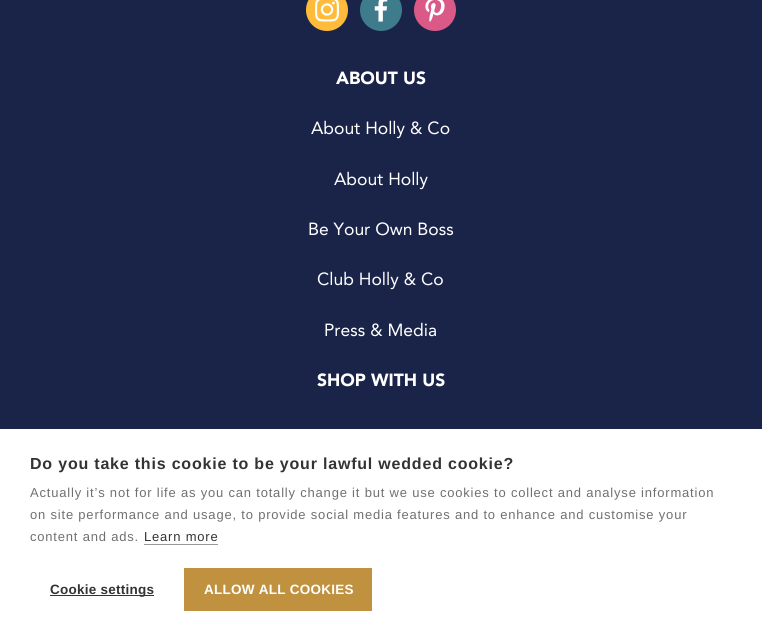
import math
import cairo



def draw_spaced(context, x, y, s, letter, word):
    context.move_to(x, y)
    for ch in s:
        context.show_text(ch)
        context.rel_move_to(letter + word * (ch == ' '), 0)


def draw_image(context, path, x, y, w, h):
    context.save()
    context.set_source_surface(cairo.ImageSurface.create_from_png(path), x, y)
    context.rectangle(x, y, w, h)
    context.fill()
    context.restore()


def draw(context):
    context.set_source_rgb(26 / 255, 36 / 255, 72 / 255)
    context.paint()
    context.set_source_rgb(1, 187 / 255, 57 / 255)
    context.arc(327, 10, 21, 0, 2 * math.pi)
    context.fill()
    draw_image(context, "images/1.png", 315, 0, 24, 22)
    context.set_source_rgb(62 / 255, 123 / 255, 139 / 255)
    context.arc(381, 10, 21, 0, 2 * math.pi)
    context.fill()
    draw_image(context, "images/2.png", 374, 0, 14, 22)
    context.set_source_rgb(218 / 255, 89 / 255, 135 / 255)
    context.arc(435, 10, 21, 0, 2 * math.pi)
    context.fill()
    draw_image(context, "images/3.png", 425, 0, 20, 22)
    context.set_source_rgb(1, 1, 1)
    context.rectangle(0, 429, 762, 207)
    context.fill()
    context.set_source_rgb(153 / 255, 153 / 255, 153 / 255)
    context.rectangle(144, 544, 74, 1)
    context.fill()
    context.set_source_rgb(51 / 255, 51 / 255, 51 / 255)
    context.rectangle(50, 595, 104, 1)
    context.fill()
    context.set_source_rgb(192 / 255, 146 / 255, 64 / 255)
    context.rectangle(184, 568, 188, 43)
    context.fill()
    context.select_font_face("Avenir Black")
    context.set_font_size(17.5)
    context.set_source_rgb(1, 1, 1)
    context.move_to(336, 84)
    context.show_text("ABOUT US")
    context.select_font_face("Avenir")
    context.move_to(311, 134)
    context.show_text("About Holly & Co")
    context.move_to(334, 185)
    context.show_text("About Holly")
    context.move_to(308, 235)
    context.show_text("Be Your Own Boss")
    context.move_to(317, 285)
    context.show_text("Club Holly & Co")
    context.move_to(324, 336)
    context.show_text("Press & Media")
    context.select_font_face("Avenir Black")
    context.move_to(317, 386)
    context.show_text("SHOP WITH US")
    context.select_font_face("Liberation Sans", cairo.FontSlant.NORMAL, cairo.FontWeight.BOLD)
    context.set_font_size(16)
    context.set_source_rgb(51 / 255, 51 / 255, 51 / 255)
    draw_spaced(context, 30, 469, "Do you take this cookie to be your lawful wedded cookie?", 0.8, 0)
    context.select_font_face("Liberation Sans")
    context.set_font_size(13)
    context.set_source_rgb(112 / 255, 112 / 255, 112 / 255)
    draw_spaced(context, 30, 497, "Actually it’s not for life as you can totally change it but we use cookies to collect and analyse information", 0.8, 0)
    draw_spaced(context, 30, 519, "on site performance and usage, to provide social media features and to enhance and customise your", 0.8, 0)
    draw_spaced(context, 30, 541, "content and ads.", 0.8, 0)
    context.set_source_rgb(51 / 255, 51 / 255, 51 / 255)
    draw_spaced(context, 144, 541, "Learn more", 0.8, 0)
    context.select_font_face("Liberation Sans", cairo.FontSlant.NORMAL, cairo.FontWeight.BOLD)
    context.set_font_size(13.5)
    draw_spaced(context, 50, 594, "Cookie settings", 0.25, 0)
    context.set_source_rgb(1, 1, 1)
    draw_spaced(context, 204, 594, "ALLOW ALL COOKIES", 0.25, 0)


surface = cairo.ImageSurface(cairo.Format.RGB24, 762, 636)
context = cairo.Context(surface)
options = cairo.FontOptions()
options.set_hint_metrics(cairo.HintMetrics.OFF)
options.set_hint_style(cairo.HintStyle.NONE)
context.set_font_options(options)
context.set_miter_limit(4)
draw(context)
surface.write_to_png("out.png")
